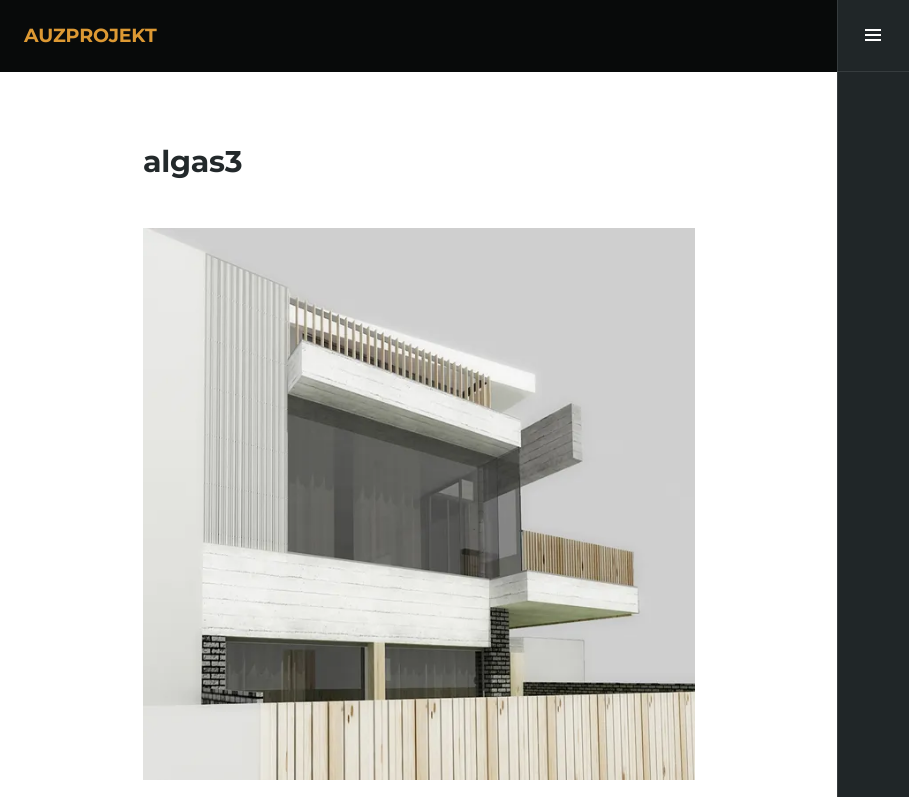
import math
import cairo



def draw_spaced(context, x, y, s, letter, word):
    context.move_to(x, y)
    for ch in s:
        context.show_text(ch)
        context.rel_move_to(letter + word * (ch == ' '), 0)


def draw_image(context, path, x, y, w, h):
    context.save()
    context.set_source_surface(cairo.ImageSurface.create_from_png(path), x, y)
    context.rectangle(x, y, w, h)
    context.fill()
    context.restore()


def draw(context):
    context.set_source_rgb(1, 1, 1)
    context.paint()
    context.set_source_rgb(8 / 255, 10 / 255, 10 / 255)
    context.rectangle(0, 0, 837, 72)
    context.fill()
    context.set_source_rgb(32 / 255, 38 / 255, 40 / 255)
    context.rectangle(838, 0, 71, 797)
    context.fill()
    draw_image(context, "images/1.png", 865, 29, 16, 12)
    draw_image(context, "images/2.png", 143, 228, 552, 552)
    context.set_source_rgb(54 / 255, 60 / 255, 62 / 255)
    context.rectangle(837, 71, 72, 1)
    context.fill()
    context.rectangle(837, 0, 1, 797)
    context.fill()
    context.set_source_rgb(74 / 255, 80 / 255, 81 / 255)
    context.rectangle(837, 71, 1, 1)
    context.fill()
    context.select_font_face("Montserrat", cairo.FontSlant.NORMAL, cairo.FontWeight.BOLD)
    context.set_font_size(19)
    context.set_source_rgb(221 / 255, 153 / 255, 51 / 255)
    draw_spaced(context, 24, 42, "AUZPROJEKT", -0.25, 0)
    context.set_font_size(30)
    context.set_source_rgb(35 / 255, 41 / 255, 43 / 255)
    draw_spaced(context, 143, 172, "algas3", -0.25, 0)


surface = cairo.ImageSurface(cairo.Format.RGB24, 909, 797)
context = cairo.Context(surface)
options = cairo.FontOptions()
options.set_hint_metrics(cairo.HintMetrics.OFF)
options.set_hint_style(cairo.HintStyle.NONE)
context.set_font_options(options)
context.set_miter_limit(4)
draw(context)
surface.write_to_png("out.png")
